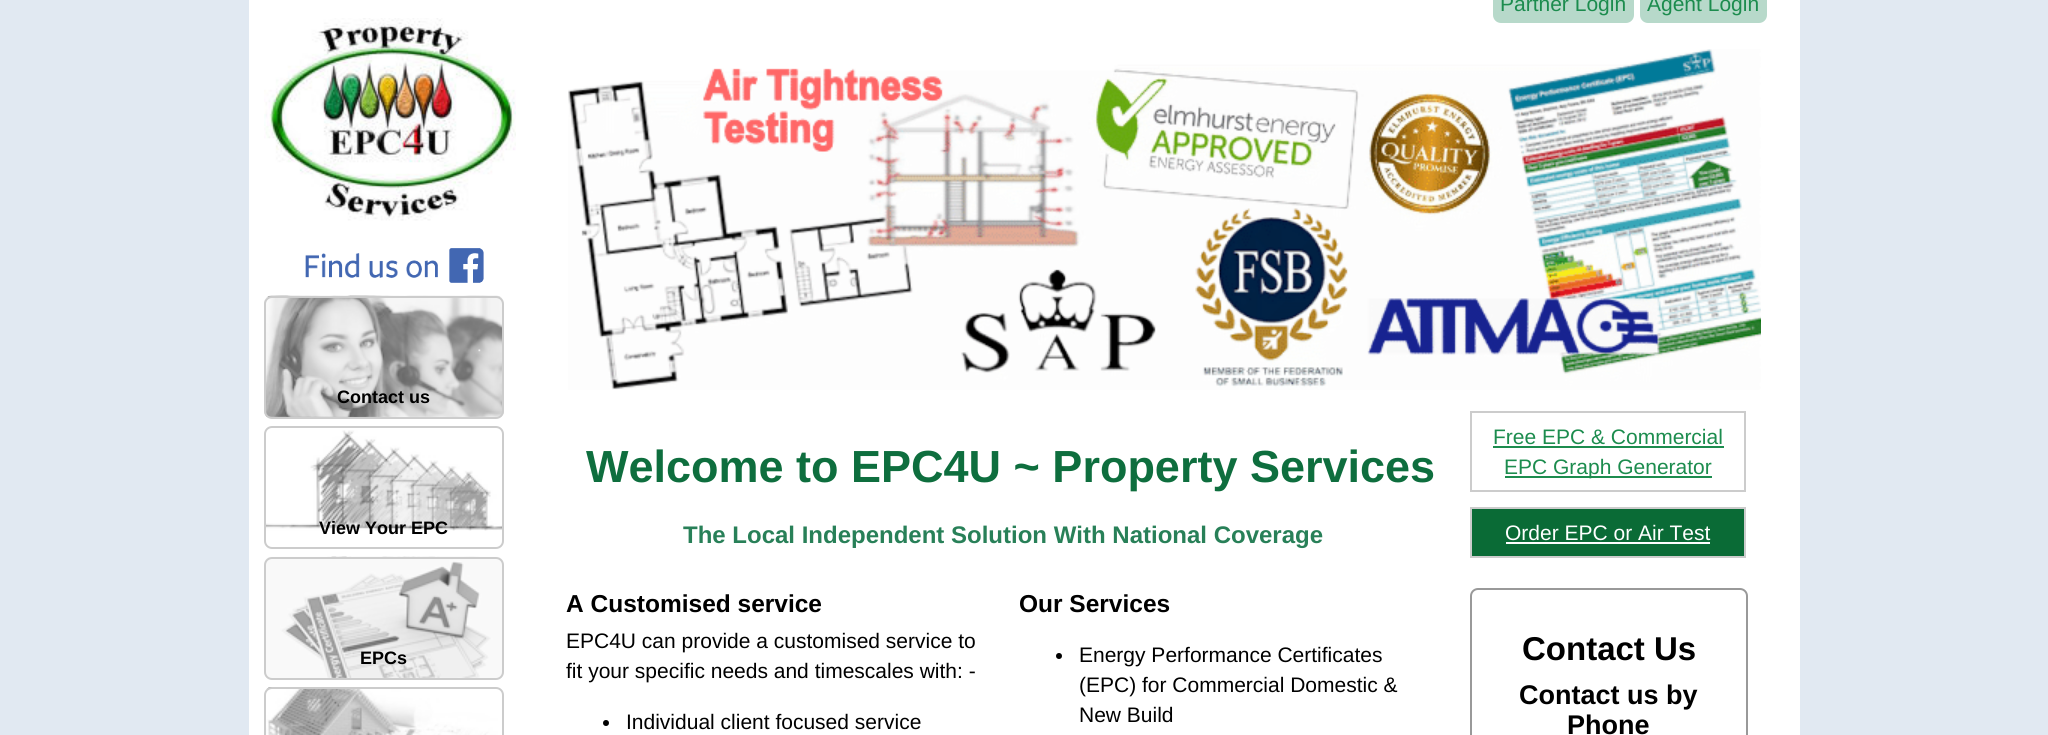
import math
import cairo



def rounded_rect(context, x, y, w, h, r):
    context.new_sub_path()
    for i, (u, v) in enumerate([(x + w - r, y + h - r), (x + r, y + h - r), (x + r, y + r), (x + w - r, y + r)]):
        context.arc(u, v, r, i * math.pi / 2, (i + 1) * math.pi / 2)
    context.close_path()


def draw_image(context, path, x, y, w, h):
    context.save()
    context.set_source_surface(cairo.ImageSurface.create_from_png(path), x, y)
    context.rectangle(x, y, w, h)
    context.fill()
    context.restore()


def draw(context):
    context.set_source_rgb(225 / 255, 233 / 255, 242 / 255)
    context.paint()
    context.set_source_rgb(1, 1, 1)
    context.rectangle(249, 0, 1551, 735)
    context.fill()
    context.set_source_rgb(183 / 255, 217 / 255, 202 / 255)
    rounded_rect(context, 1493, -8, 141, 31, 8)
    context.fill()
    rounded_rect(context, 1640, -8, 127, 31, 8)
    context.fill()
    draw_image(context, "images/1.png", 568, 49, 1193, 341)
    draw_image(context, "images/2.png", 264, 18, 252, 203)
    draw_image(context, "images/3.png", 305, 248, 179, 35)
    draw_image(context, "images/4.png", 264, 295, 240, 124)
    rounded_rect(context, 265, 297, 238, 121, 7)
    context.set_source_rgb(204 / 255, 204 / 255, 204 / 255)
    context.stroke()
    draw_image(context, "images/5.png", 264, 430, 240, 101)
    rounded_rect(context, 265, 427, 238, 121, 7)
    context.stroke()
    draw_image(context, "images/6.png", 264, 556, 240, 123)
    rounded_rect(context, 265, 558, 238, 121, 7)
    context.stroke()
    draw_image(context, "images/7.png", 266, 687, 232, 48)
    rounded_rect(context, 265, 688, 238, 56, 7)
    context.stroke()
    context.set_source_rgb(0, 0, 0)
    context.arc(606, 723, 3, 0, 2 * math.pi)
    context.fill()
    context.arc(1059, 656, 3, 0, 2 * math.pi)
    context.fill()
    context.rectangle(1471, 412, 274, 79)
    context.set_source_rgb(204 / 255, 204 / 255, 204 / 255)
    context.stroke()
    context.set_source_rgb(28 / 255, 140 / 255, 78 / 255)
    context.rectangle(1493, 446, 231, 2)
    context.fill()
    context.rectangle(1505, 476, 207, 2)
    context.fill()
    context.set_source_rgb(10 / 255, 107 / 255, 54 / 255)
    context.rectangle(1471, 508, 274, 49)
    context.fill_preserve()
    context.set_source_rgb(204 / 255, 204 / 255, 204 / 255)
    context.stroke()
    context.set_source_rgb(1, 1, 1)
    context.rectangle(1506, 542, 204, 2)
    context.fill()
    rounded_rect(context, 1471, 589, 276, 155, 7)
    context.set_source_rgb(153 / 255, 153 / 255, 153 / 255)
    context.stroke()
    context.select_font_face("Liberation Sans")
    context.set_font_size(21)
    context.set_source_rgb(28 / 255, 140 / 255, 78 / 255)
    context.move_to(1500, 11)
    context.show_text("Partner Login")
    context.move_to(1647, 11)
    context.show_text("Agent Login")
    context.select_font_face("Liberation Sans", cairo.FontSlant.NORMAL, cairo.FontWeight.BOLD)
    context.set_font_size(18)
    context.set_source_rgb(0, 0, 0)
    context.move_to(337, 403)
    context.show_text("Contact us")
    context.move_to(319, 534)
    context.show_text("View Your EPC")
    context.move_to(360, 664)
    context.show_text("EPCs")
    context.set_font_size(45)
    context.set_source_rgb(14 / 255, 110 / 255, 62 / 255)
    context.move_to(586, 482)
    context.show_text("Welcome to EPC4U ~ Property Services")
    context.set_font_size(24)
    context.set_source_rgb(40 / 255, 128 / 255, 88 / 255)
    context.move_to(683, 543)
    context.show_text("The Local Independent Solution With National Coverage")
    context.set_font_size(24.5)
    context.set_source_rgb(0, 0, 0)
    context.move_to(566, 612)
    context.show_text("A Customised service")
    context.select_font_face("Liberation Sans")
    context.set_font_size(21)
    context.move_to(566, 648)
    context.show_text("EPC4U can provide a customised service to")
    context.move_to(566, 678)
    context.show_text("fit your specific needs and timescales with: -")
    context.move_to(626, 729)
    context.show_text("Individual client focused service")
    context.select_font_face("Liberation Sans", cairo.FontSlant.NORMAL, cairo.FontWeight.BOLD)
    context.set_font_size(24.5)
    context.move_to(1019, 612)
    context.show_text("Our Services")
    context.select_font_face("Liberation Sans")
    context.set_font_size(21)
    context.move_to(1079, 662)
    context.show_text("Energy Performance Certificates")
    context.move_to(1079, 692)
    context.show_text("(EPC) for Commercial Domestic &")
    context.move_to(1079, 722)
    context.show_text("New Build")
    context.set_source_rgb(28 / 255, 140 / 255, 78 / 255)
    context.move_to(1493, 444)
    context.show_text("Free EPC & Commercial")
    context.move_to(1504, 474)
    context.show_text("EPC Graph Generator")
    context.set_source_rgb(1, 1, 1)
    context.move_to(1505, 540)
    context.show_text("Order EPC or Air Test")
    context.select_font_face("Liberation Sans", cairo.FontSlant.NORMAL, cairo.FontWeight.BOLD)
    context.set_font_size(33)
    context.set_source_rgb(0, 0, 0)
    context.move_to(1522, 660)
    context.show_text("Contact Us")
    context.set_font_size(27)
    context.move_to(1519, 704)
    context.show_text("Contact us by")
    context.move_to(1567, 734)
    context.show_text("Phone")


surface = cairo.ImageSurface(cairo.Format.RGB24, 2048, 735)
context = cairo.Context(surface)
options = cairo.FontOptions()
options.set_hint_metrics(cairo.HintMetrics.OFF)
options.set_hint_style(cairo.HintStyle.NONE)
context.set_font_options(options)
context.set_miter_limit(4)
draw(context)
surface.write_to_png("out.png")
